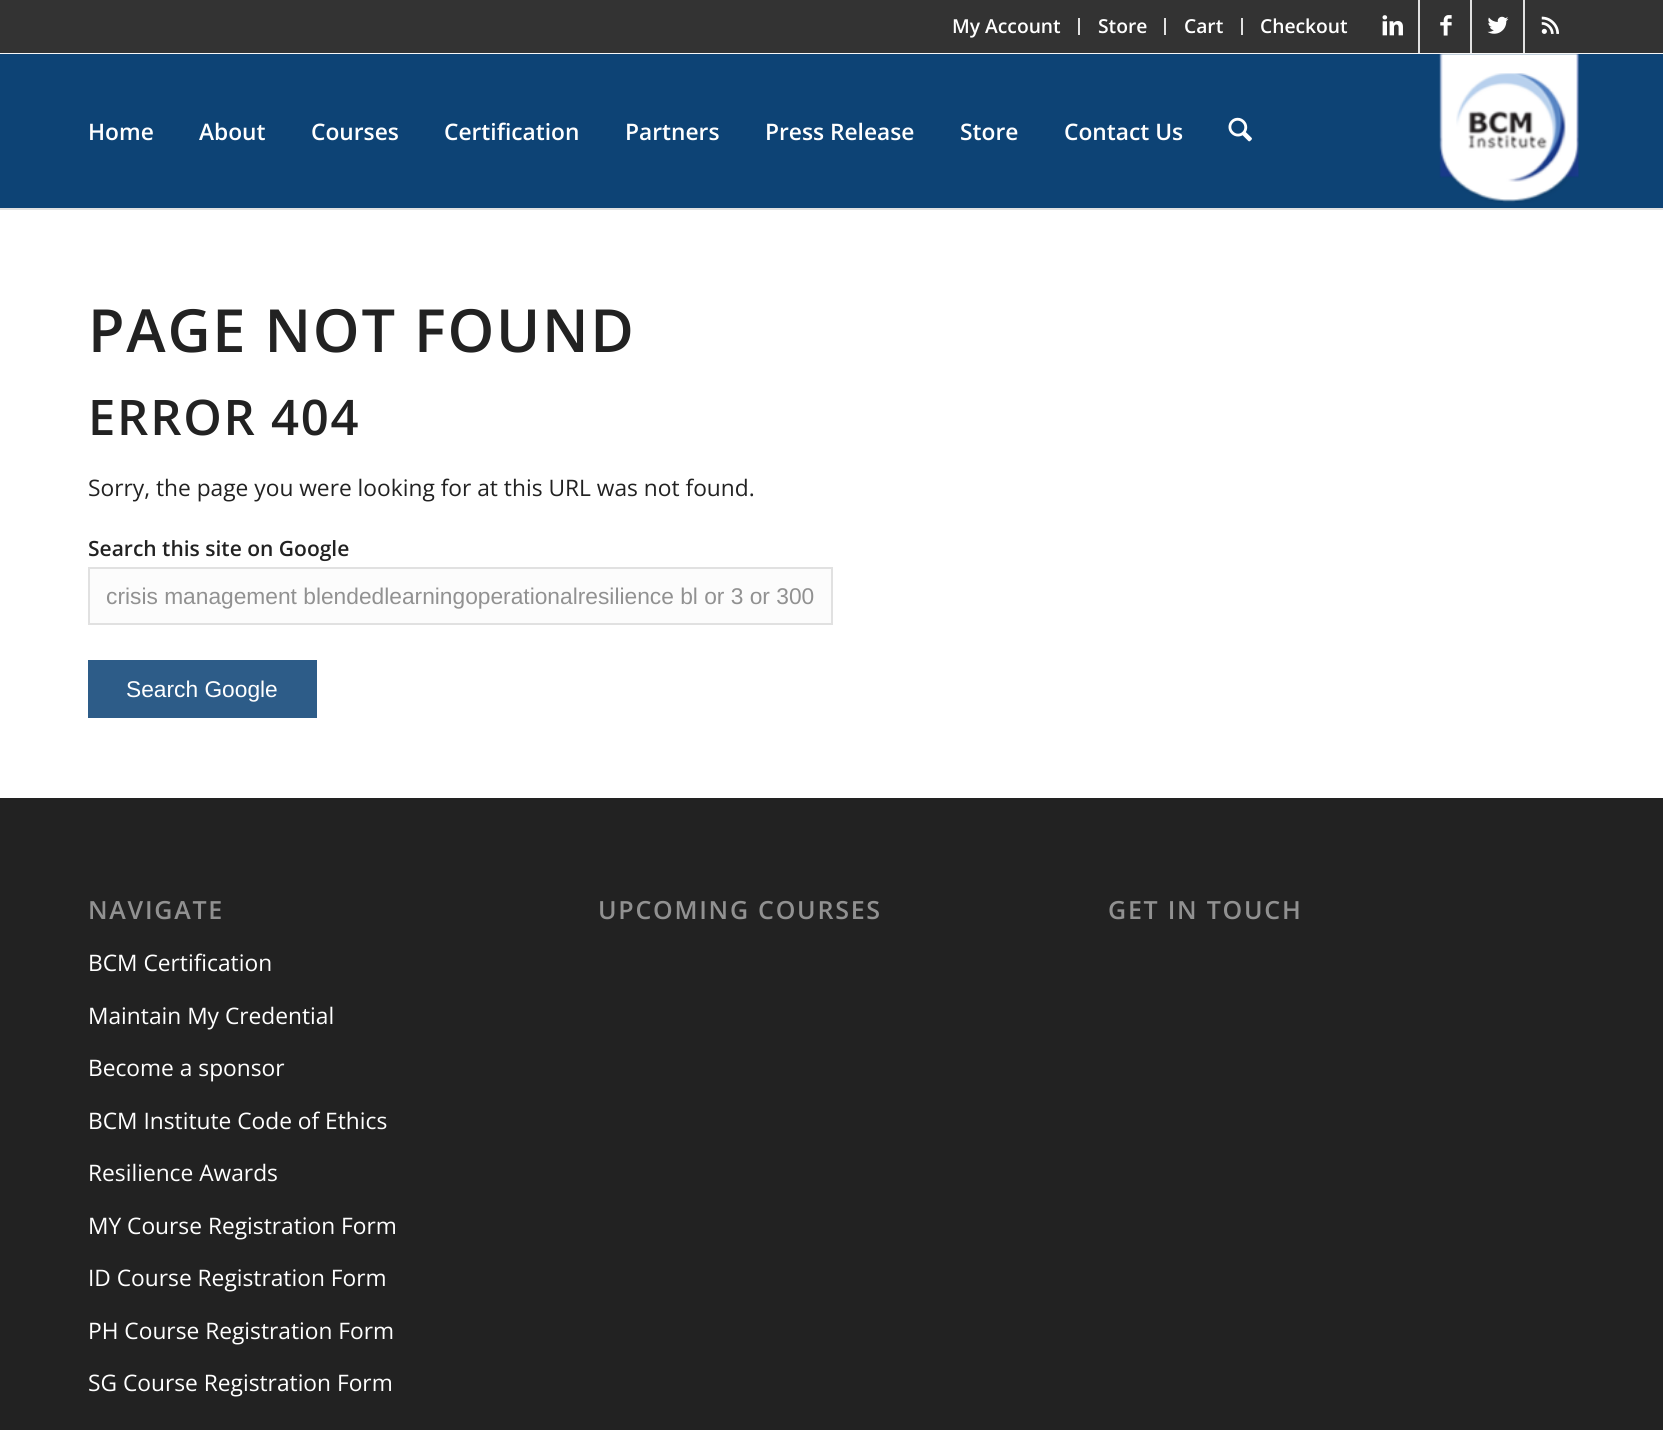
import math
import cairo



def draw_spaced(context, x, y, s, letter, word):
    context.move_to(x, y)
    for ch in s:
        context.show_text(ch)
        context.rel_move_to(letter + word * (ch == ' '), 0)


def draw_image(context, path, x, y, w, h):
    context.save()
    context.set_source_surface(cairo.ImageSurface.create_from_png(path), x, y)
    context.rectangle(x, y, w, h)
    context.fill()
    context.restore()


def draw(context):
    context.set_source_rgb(1, 1, 1)
    context.paint()
    context.set_source_rgb(51 / 255, 51 / 255, 51 / 255)
    context.rectangle(0, 0, 1663, 53)
    context.fill()
    context.set_source_rgb(248 / 255, 248 / 255, 248 / 255)
    context.rectangle(0, 53, 1663, 1)
    context.fill()
    context.set_source_rgb(225 / 255, 225 / 255, 225 / 255)
    context.rectangle(1078, 18, 2, 17)
    context.fill()
    context.rectangle(1164, 18, 2, 17)
    context.fill()
    context.rectangle(1241, 18, 2, 17)
    context.fill()
    context.rectangle(1418, 0, 2, 53)
    context.fill()
    draw_image(context, "images/1.png", 1382, 15, 21, 21)
    context.rectangle(1470, 0, 2, 53)
    context.fill()
    draw_image(context, "images/2.png", 1440, 15, 12, 21)
    context.rectangle(1523, 0, 2, 53)
    context.fill()
    draw_image(context, "images/3.png", 1487, 16, 22, 18)
    draw_image(context, "images/4.png", 1541, 16, 18, 18)
    context.set_source_rgb(13 / 255, 67 / 255, 117 / 255)
    context.rectangle(0, 54, 1663, 154)
    context.fill()
    context.set_source_rgb(225 / 255, 225 / 255, 225 / 255)
    context.rectangle(0, 208, 1663, 2)
    context.fill()
    draw_image(context, "images/5.png", 1228, 117, 24, 25)
    draw_image(context, "images/6.png", 1439, 54, 140, 149)
    context.set_source_rgb(252 / 255, 252 / 255, 252 / 255)
    context.rectangle(89, 568, 743, 56)
    context.fill_preserve()
    context.set_source_rgb(225 / 255, 225 / 255, 225 / 255)
    context.stroke()
    context.set_source_rgb(45 / 255, 92 / 255, 136 / 255)
    context.rectangle(88, 660, 229, 58)
    context.fill()
    context.set_source_rgb(34 / 255, 34 / 255, 34 / 255)
    context.rectangle(0, 798, 1663, 632)
    context.fill()
    context.select_font_face("Open Sans SemiBold")
    context.set_font_size(19.25)
    context.set_source_rgb(1, 1, 1)
    context.move_to(952, 33)
    context.show_text("My Account")
    context.move_to(1098, 33)
    context.show_text("Store")
    context.move_to(1184, 33)
    context.show_text("Cart")
    context.move_to(1260, 33)
    context.show_text("Checkout")
    context.set_font_size(22.75)
    context.move_to(88, 140)
    context.show_text("Home")
    context.move_to(199, 140)
    context.show_text("About")
    context.move_to(311, 140)
    context.show_text("Courses")
    context.move_to(444, 140)
    context.show_text("Certification")
    context.move_to(625, 140)
    context.show_text("Partners")
    context.move_to(765, 140)
    context.show_text("Press Release")
    context.move_to(960, 140)
    context.show_text("Store")
    context.move_to(1064, 140)
    context.show_text("Contact Us")
    context.set_font_size(59.5)
    context.set_source_rgb(34 / 255, 34 / 255, 34 / 255)
    draw_spaced(context, 88, 352, "PAGE NOT FOUND", 1.75, 0)
    context.set_font_size(49)
    draw_spaced(context, 88, 435, "ERROR 404", 1.75, 0)
    context.select_font_face("Open Sans")
    context.set_font_size(22.75)
    context.move_to(88, 496)
    context.show_text("Sorry, the page you were looking for at this URL was not found.")
    context.select_font_face("Open Sans SemiBold")
    context.set_font_size(21)
    context.move_to(88, 556)
    context.show_text("Search this site on Google")
    context.select_font_face("Liberation Sans")
    context.set_font_size(22.75)
    context.set_source_rgb(145 / 255, 145 / 255, 145 / 255)
    context.move_to(106, 604)
    context.show_text("crisis management blendedlearningoperationalresilience bl or 3 or 300")
    context.set_source_rgb(1, 1, 1)
    context.move_to(126, 697)
    context.show_text("Search Google")
    context.select_font_face("Open Sans SemiBold")
    context.set_font_size(25)
    context.set_source_rgb(145 / 255, 145 / 255, 145 / 255)
    draw_spaced(context, 88, 919, "NAVIGATE", 1.75, 0)
    context.select_font_face("Open Sans")
    context.set_font_size(22.75)
    context.set_source_rgb(1, 1, 1)
    context.move_to(88, 971)
    context.show_text("BCM Certification")
    context.move_to(88, 1024)
    context.show_text("Maintain My Credential")
    context.move_to(88, 1076)
    context.show_text("Become a sponsor")
    context.move_to(88, 1129)
    context.show_text("BCM Institute Code of Ethics")
    context.move_to(88, 1181)
    context.show_text("Resilience Awards")
    context.move_to(88, 1234)
    context.show_text("MY Course Registration Form")
    context.move_to(88, 1286)
    context.show_text("ID Course Registration Form")
    context.move_to(88, 1339)
    context.show_text("PH Course Registration Form")
    context.move_to(88, 1391)
    context.show_text("SG Course Registration Form")
    context.select_font_face("Open Sans SemiBold")
    context.set_font_size(25)
    context.set_source_rgb(145 / 255, 145 / 255, 145 / 255)
    draw_spaced(context, 598, 919, "UPCOMING COURSES", 1.75, 0)
    draw_spaced(context, 1108, 919, "GET IN TOUCH", 1.75, 0)


surface = cairo.ImageSurface(cairo.Format.RGB24, 1663, 1430)
context = cairo.Context(surface)
options = cairo.FontOptions()
options.set_hint_metrics(cairo.HintMetrics.OFF)
options.set_hint_style(cairo.HintStyle.NONE)
context.set_font_options(options)
context.set_miter_limit(4)
draw(context)
surface.write_to_png("out.png")
